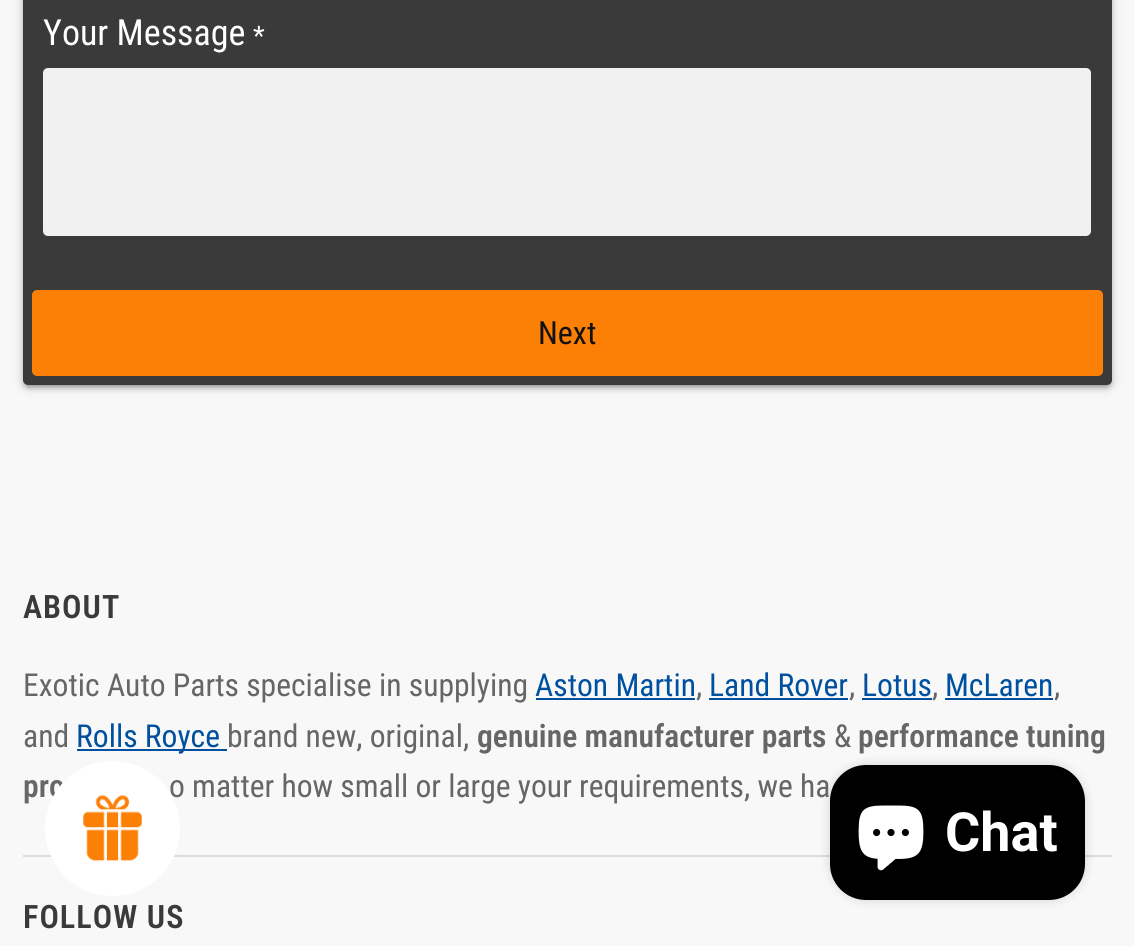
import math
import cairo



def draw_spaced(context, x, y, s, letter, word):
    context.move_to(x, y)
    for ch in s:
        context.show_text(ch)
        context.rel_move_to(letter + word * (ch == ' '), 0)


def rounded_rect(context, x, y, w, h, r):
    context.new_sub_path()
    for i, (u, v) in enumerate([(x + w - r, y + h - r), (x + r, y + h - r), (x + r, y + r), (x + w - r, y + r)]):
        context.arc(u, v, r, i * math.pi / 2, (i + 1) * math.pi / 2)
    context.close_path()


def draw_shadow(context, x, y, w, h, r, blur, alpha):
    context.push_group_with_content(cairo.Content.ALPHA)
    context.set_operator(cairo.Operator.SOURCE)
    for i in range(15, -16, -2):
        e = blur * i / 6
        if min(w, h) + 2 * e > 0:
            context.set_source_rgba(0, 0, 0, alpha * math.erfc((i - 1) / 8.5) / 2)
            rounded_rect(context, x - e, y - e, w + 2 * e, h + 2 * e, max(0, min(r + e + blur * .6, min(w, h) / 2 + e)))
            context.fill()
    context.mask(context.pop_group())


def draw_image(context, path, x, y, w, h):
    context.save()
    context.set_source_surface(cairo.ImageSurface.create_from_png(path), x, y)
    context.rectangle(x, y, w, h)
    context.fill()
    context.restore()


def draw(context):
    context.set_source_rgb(248 / 255, 248 / 255, 248 / 255)
    context.paint()
    context.set_source_rgb(0, 0, 0)
    draw_shadow(context, 23, -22, 1089, 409, 5, 5.5, 0.2)
    draw_shadow(context, 27, -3, 1080, 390, 0, 1, 0.12)
    draw_shadow(context, 23, -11, 1089, 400, 5, 2, 0.14)
    context.set_source_rgb(58 / 255, 58 / 255, 58 / 255)
    rounded_rect(context, 23, -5, 1089, 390, 5)
    context.fill()
    context.set_source_rgb(241 / 255, 241 / 255, 241 / 255)
    rounded_rect(context, 43, 68, 1048, 168, 5)
    context.fill()
    context.set_source_rgb(252 / 255, 127 / 255, 6 / 255)
    rounded_rect(context, 33, 291, 1069, 84, 4)
    context.fill_preserve()
    context.stroke()
    context.set_source_rgb(219 / 255, 219 / 255, 219 / 255)
    context.rectangle(23, 855, 1089, 2)
    context.fill()
    context.set_source_rgb(0, 80 / 255, 160 / 255)
    context.rectangle(536, 698, 159, 2)
    context.fill()
    context.rectangle(709, 698, 139, 2)
    context.fill()
    context.rectangle(862, 698, 70, 2)
    context.fill()
    context.rectangle(945, 698, 108, 2)
    context.fill()
    context.rectangle(77, 749, 150, 2)
    context.fill()
    context.set_source_rgb(0, 0, 0)
    draw_shadow(context, 830, 765, 255, 135, 36, 5.5, 0.15)
    context.set_source_rgb(0, 0, 0)
    rounded_rect(context, 830, 765, 255, 135, 36)
    context.fill()
    draw_image(context, "images/2.png", 858, 805, 66, 66)
    context.select_font_face("Roboto Condensed")
    context.set_font_size(36)
    context.set_source_rgb(1, 1, 1)
    context.move_to(43, 45)
    context.show_text("Your Message")
    context.set_font_size(27)
    context.move_to(253, 45)
    context.show_text("*")
    context.set_font_size(32)
    context.set_source_rgb(18 / 255, 18 / 255, 18 / 255)
    context.move_to(538, 344)
    context.show_text("Next")
    context.select_font_face("Roboto Condensed SemiBold")
    context.set_font_size(32.25)
    context.set_source_rgb(58 / 255, 58 / 255, 58 / 255)
    draw_spaced(context, 23, 618, "ABOUT", 1, 0)
    context.select_font_face("Roboto Condensed")
    context.set_font_size(31.6)
    context.set_source_rgb(102 / 255, 102 / 255, 102 / 255)
    context.move_to(23, 696)
    context.show_text("Exotic Auto Parts specialise in supplying")
    context.set_source_rgb(0, 80 / 255, 160 / 255)
    context.move_to(535, 696)
    context.show_text("Aston Martin")
    context.set_source_rgb(102 / 255, 102 / 255, 102 / 255)
    context.move_to(696, 696)
    context.show_text(",")
    context.set_source_rgb(0, 80 / 255, 160 / 255)
    context.move_to(709, 696)
    context.show_text("Land Rover")
    context.set_source_rgb(102 / 255, 102 / 255, 102 / 255)
    context.move_to(849, 696)
    context.show_text(",")
    context.set_source_rgb(0, 80 / 255, 160 / 255)
    context.move_to(862, 696)
    context.show_text("Lotus")
    context.set_source_rgb(102 / 255, 102 / 255, 102 / 255)
    context.move_to(932, 696)
    context.show_text(",")
    context.set_source_rgb(0, 80 / 255, 160 / 255)
    context.move_to(945, 696)
    context.show_text("McLaren")
    context.set_source_rgb(102 / 255, 102 / 255, 102 / 255)
    context.move_to(1054, 696)
    context.show_text(",")
    context.move_to(23, 747)
    context.show_text("and")
    context.set_source_rgb(0, 80 / 255, 160 / 255)
    context.move_to(76, 747)
    context.show_text("Rolls Royce")
    context.set_source_rgb(102 / 255, 102 / 255, 102 / 255)
    context.move_to(227, 747)
    context.show_text("brand new, original,")
    context.select_font_face("Roboto Condensed SemiBold")
    context.move_to(477, 747)
    context.show_text("genuine manufacturer parts")
    context.select_font_face("Roboto Condensed")
    context.move_to(834, 747)
    context.show_text("&")
    context.select_font_face("Roboto Condensed SemiBold")
    context.move_to(858, 747)
    context.show_text("performance tuning")
    context.move_to(23, 797)
    context.show_text("pro")
    context.select_font_face("Roboto Condensed")
    context.move_to(169, 797)
    context.show_text("o matter how small or large your requirements, we ha")
    context.select_font_face("Roboto Condensed SemiBold")
    context.set_font_size(32.25)
    context.set_source_rgb(58 / 255, 58 / 255, 58 / 255)
    draw_spaced(context, 23, 928, "FOLLOW US", 1, 0)
    context.set_source_rgb(1, 1, 1)
    context.new_path()
    context.arc(112.5, 828.5, 67.5, 0, 2 * math.pi)
    context.fill()
    draw_image(context, "images/1.png", 83, 795, 59, 67)
    context.select_font_face("Roboto", cairo.FontSlant.NORMAL, cairo.FontWeight.BOLD)
    context.set_font_size(54)
    context.move_to(945, 851)
    context.show_text("Chat")


surface = cairo.ImageSurface(cairo.Format.RGB24, 1134, 946)
context = cairo.Context(surface)
options = cairo.FontOptions()
options.set_hint_metrics(cairo.HintMetrics.OFF)
options.set_hint_style(cairo.HintStyle.NONE)
context.set_font_options(options)
context.set_miter_limit(4)
draw(context)
surface.write_to_png("out.png")
